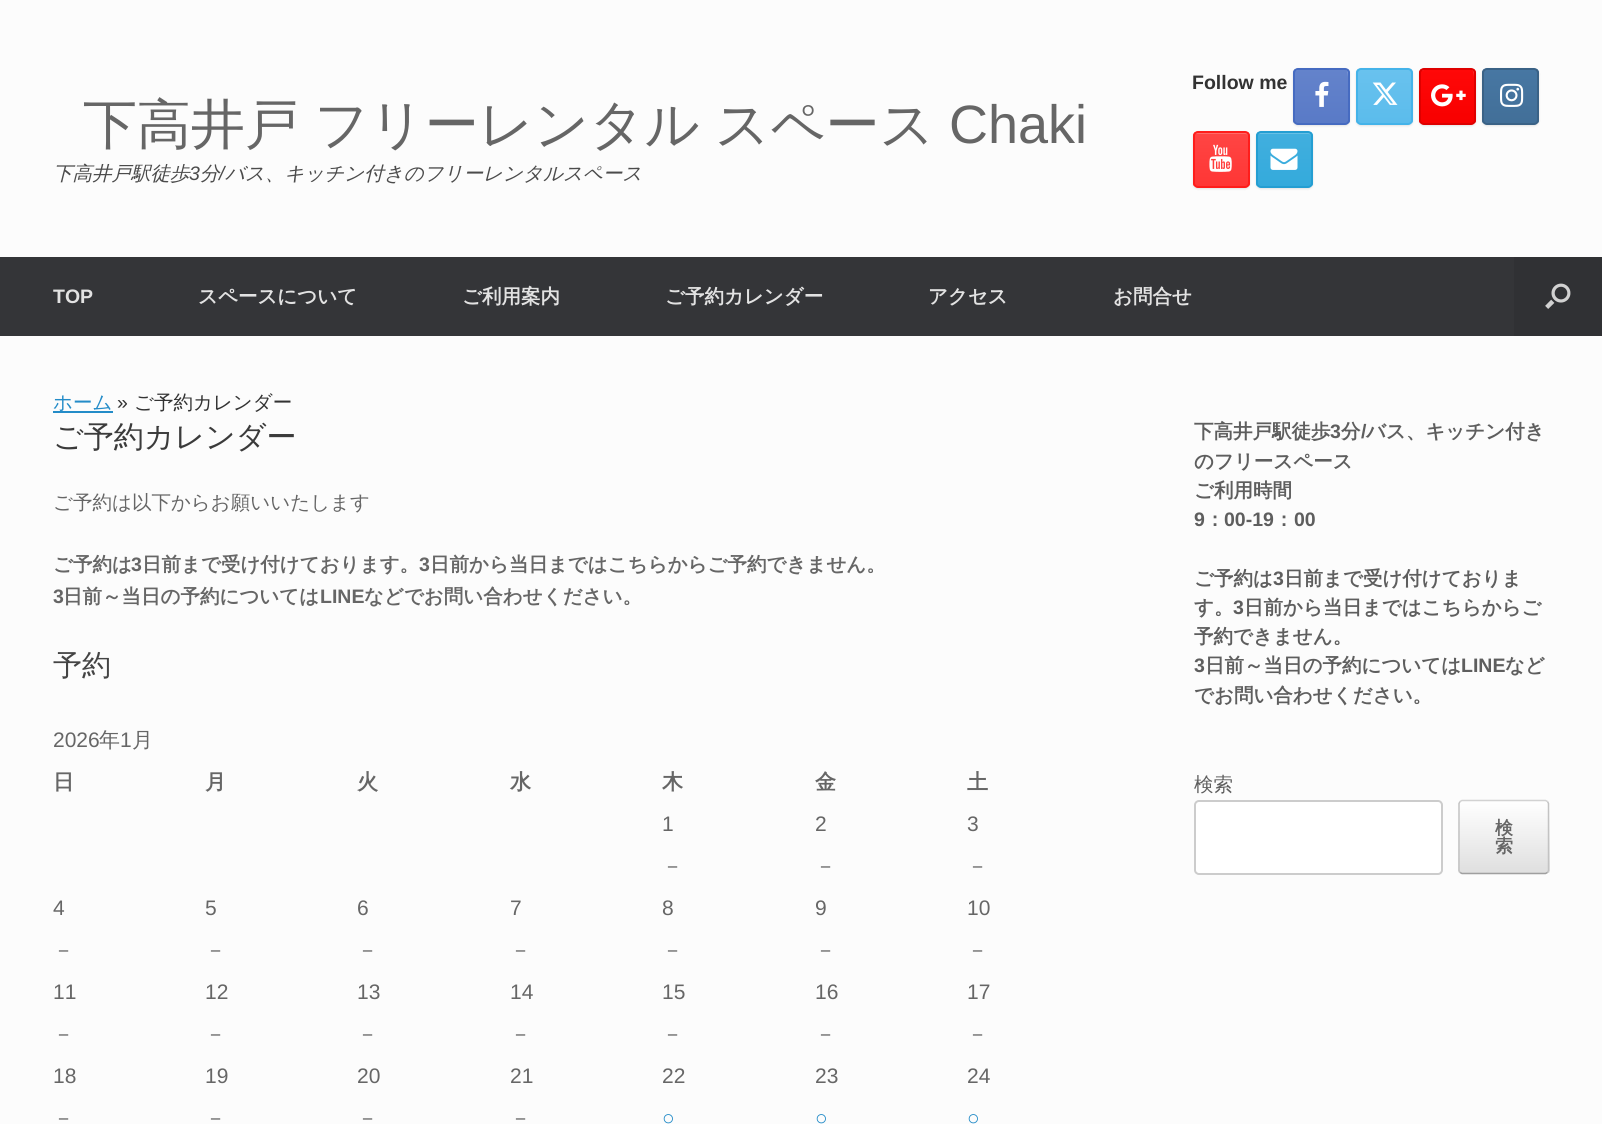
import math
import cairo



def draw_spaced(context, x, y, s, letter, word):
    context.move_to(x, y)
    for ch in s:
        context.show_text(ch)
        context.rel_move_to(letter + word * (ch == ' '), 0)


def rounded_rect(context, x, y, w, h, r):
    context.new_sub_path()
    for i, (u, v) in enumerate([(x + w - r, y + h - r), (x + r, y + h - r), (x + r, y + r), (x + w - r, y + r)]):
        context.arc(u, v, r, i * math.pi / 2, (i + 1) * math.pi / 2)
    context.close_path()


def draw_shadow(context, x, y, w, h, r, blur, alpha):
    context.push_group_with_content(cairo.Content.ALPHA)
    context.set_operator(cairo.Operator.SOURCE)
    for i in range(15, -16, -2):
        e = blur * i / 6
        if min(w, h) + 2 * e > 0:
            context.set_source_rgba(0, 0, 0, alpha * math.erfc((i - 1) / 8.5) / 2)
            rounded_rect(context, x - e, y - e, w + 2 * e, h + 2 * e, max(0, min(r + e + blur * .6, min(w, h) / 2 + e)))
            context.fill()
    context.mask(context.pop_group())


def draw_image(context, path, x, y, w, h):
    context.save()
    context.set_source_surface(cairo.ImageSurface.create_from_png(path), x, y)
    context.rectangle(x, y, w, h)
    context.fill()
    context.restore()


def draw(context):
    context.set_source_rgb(252 / 255, 252 / 255, 252 / 255)
    context.paint()
    context.set_source_rgb(0, 0, 0)
    draw_shadow(context, 1293, 69, 57, 57, 5, 1, 0.1)
    context.save()
    rounded_rect(context, 1293, 68, 57, 57, 5)
    context.clip()
    gradient = cairo.LinearGradient(1322, 123, 1322, 69)
    gradient.add_color_stop_rgba(0, 89 / 255, 122 / 255, 199 / 255, 1)
    gradient.add_color_stop_rgba(1, 100 / 255, 131 / 255, 203 / 255, 1)
    context.set_source(gradient)
    context.rectangle(1293, 69, 57, 54)
    context.fill()
    context.restore()
    context.set_source_rgba(1, 1, 1, 0.2)
    context.new_path()
    context.move_to(1298, 70)
    context.line_to(1346, 70)
    context.curve_to(1349, 72, 1348, 88, 1348, 90)
    context.line_to(1348, 122)
    context.curve_to(1349, 122, 1349, 121, 1349, 120)
    context.line_to(1349, 72)
    context.curve_to(1349, 70, 1348, 69, 1346, 69)
    context.line_to(1298, 69)
    context.curve_to(1297, 69, 1295, 70, 1295, 71)
    context.close_path()
    context.fill()
    rounded_rect(context, 1294, 69, 55, 55, 4)
    context.set_source_rgb(70 / 255, 107 / 255, 193 / 255)
    context.stroke()
    draw_image(context, "images/1.png", 1315, 81, 14, 26)
    context.set_source_rgb(0, 0, 0)
    draw_shadow(context, 1356, 69, 57, 57, 5, 1, 0.1)
    context.save()
    rounded_rect(context, 1356, 68, 57, 57, 5)
    context.clip()
    gradient = cairo.LinearGradient(1385, 123, 1385, 69)
    gradient.add_color_stop_rgba(0, 91 / 255, 188 / 255, 236 / 255, 1)
    gradient.add_color_stop_rgba(1, 105 / 255, 194 / 255, 238 / 255, 1)
    context.set_source(gradient)
    context.rectangle(1356, 69, 57, 54)
    context.fill()
    context.restore()
    rounded_rect(context, 1357, 69, 55, 55, 4)
    context.set_source_rgb(68 / 255, 179 / 255, 233 / 255)
    context.stroke()
    draw_image(context, "images/2.png", 1372, 82, 26, 23)
    context.set_source_rgb(0, 0, 0)
    draw_shadow(context, 1419, 69, 57, 57, 5, 1, 0.1)
    context.save()
    rounded_rect(context, 1419, 68, 57, 57, 5)
    context.clip()
    gradient = cairo.LinearGradient(1448, 123, 1448, 69)
    gradient.add_color_stop_rgba(0, 248 / 255, 0, 0, 1)
    gradient.add_color_stop_rgba(1, 1, 8 / 255, 8 / 255, 1)
    context.set_source(gradient)
    context.rectangle(1419, 69, 57, 54)
    context.fill()
    context.restore()
    context.set_source_rgba(1, 1, 1, 0.2)
    context.new_path()
    context.move_to(1424, 70)
    context.line_to(1472, 70)
    context.curve_to(1475, 72, 1474, 88, 1474, 90)
    context.line_to(1474, 122)
    context.curve_to(1475, 122, 1475, 121, 1475, 120)
    context.line_to(1475, 72)
    context.curve_to(1475, 70, 1474, 69, 1472, 69)
    context.line_to(1424, 69)
    context.curve_to(1423, 69, 1421, 70, 1421, 71)
    context.close_path()
    context.fill()
    rounded_rect(context, 1420, 69, 55, 55, 4)
    context.set_source_rgb(223 / 255, 0, 0)
    context.stroke()
    draw_image(context, "images/3.png", 1431, 84, 35, 23)
    context.set_source_rgb(0, 0, 0)
    draw_shadow(context, 1482, 69, 57, 57, 5, 1, 0.1)
    context.save()
    rounded_rect(context, 1482, 68, 57, 57, 5)
    context.clip()
    gradient = cairo.LinearGradient(1511, 123, 1511, 69)
    gradient.add_color_stop_rgba(0, 66 / 255, 111 / 255, 152 / 255, 1)
    gradient.add_color_stop_rgba(1, 71 / 255, 119 / 255, 163 / 255, 1)
    context.set_source(gradient)
    context.rectangle(1482, 69, 57, 54)
    context.fill()
    context.restore()
    rounded_rect(context, 1483, 69, 55, 55, 4)
    context.set_source_rgb(58 / 255, 98 / 255, 134 / 255)
    context.stroke()
    draw_image(context, "images/4.png", 1500, 83, 24, 24)
    context.set_source_rgb(0, 0, 0)
    draw_shadow(context, 1193, 132, 57, 57, 5, 1, 0.1)
    context.save()
    rounded_rect(context, 1193, 131, 57, 57, 5)
    context.clip()
    gradient = cairo.LinearGradient(1221, 186, 1221, 132)
    gradient.add_color_stop_rgba(0, 1, 54 / 255, 53 / 255, 1)
    gradient.add_color_stop_rgba(1, 1, 69 / 255, 68 / 255, 1)
    context.set_source(gradient)
    context.rectangle(1193, 132, 57, 54)
    context.fill()
    context.restore()
    context.set_source_rgb(1, 106 / 255, 105 / 255)
    context.new_path()
    context.move_to(1197, 134)
    context.line_to(1245, 134)
    context.curve_to(1247, 134, 1248, 135, 1248, 136)
    context.curve_to(1248, 130, 1241, 132, 1237, 132)
    context.line_to(1205, 132)
    context.curve_to(1201, 132, 1194, 130, 1194, 136)
    context.curve_to(1194, 135, 1195, 134, 1197, 134)
    context.close_path()
    context.fill()
    rounded_rect(context, 1194, 132, 55, 55, 4)
    context.set_source_rgb(1, 29 / 255, 27 / 255)
    context.stroke()
    draw_image(context, "images/5.png", 1209, 144, 23, 28)
    context.set_source_rgb(0, 0, 0)
    draw_shadow(context, 1256, 132, 57, 57, 5, 1, 0.1)
    context.save()
    rounded_rect(context, 1256, 131, 57, 57, 5)
    context.clip()
    gradient = cairo.LinearGradient(1284, 186, 1284, 132)
    gradient.add_color_stop_rgba(0, 52 / 255, 170 / 255, 220 / 255, 1)
    gradient.add_color_stop_rgba(1, 65 / 255, 175 / 255, 222 / 255, 1)
    context.set_source(gradient)
    context.rectangle(1256, 132, 57, 54)
    context.fill()
    context.restore()
    context.set_source_rgb(103 / 255, 191 / 255, 229 / 255)
    context.new_path()
    context.move_to(1260, 134)
    context.line_to(1308, 134)
    context.curve_to(1310, 134, 1311, 135, 1311, 136)
    context.curve_to(1311, 130, 1304, 132, 1300, 132)
    context.line_to(1268, 132)
    context.curve_to(1264, 132, 1257, 130, 1257, 136)
    context.curve_to(1257, 135, 1258, 134, 1260, 134)
    context.close_path()
    context.fill()
    rounded_rect(context, 1257, 132, 55, 55, 4)
    context.set_source_rgb(36 / 255, 158 / 255, 210 / 255)
    context.stroke()
    draw_image(context, "images/6.png", 1270, 148, 28, 22)
    context.set_source_rgb(52 / 255, 53 / 255, 56 / 255)
    context.rectangle(0, 257, 1514, 79)
    context.fill()
    context.set_source_rgb(48 / 255, 49 / 255, 52 / 255)
    context.rectangle(1514, 257, 88, 79)
    context.fill()
    draw_image(context, "images/7.png", 1545, 283, 26, 26)
    context.set_source_rgb(36 / 255, 140 / 255, 200 / 255)
    context.rectangle(53, 411, 60, 2)
    context.fill()
    context.set_source_rgb(1, 1, 1)
    rounded_rect(context, 1195, 801, 247, 73, 4)
    context.fill_preserve()
    context.set_source_rgb(204 / 255, 204 / 255, 204 / 255)
    context.stroke()
    context.save()
    rounded_rect(context, 1458, 800, 92, 75, 5)
    context.clip()
    gradient = cairo.LinearGradient(1460, 873, 1460, 801)
    gradient.add_color_stop_rgba(0, 223 / 255, 223 / 255, 223 / 255, 1)
    gradient.add_color_stop_rgba(1, 1, 1, 1, 1)
    context.set_source(gradient)
    context.rectangle(1458, 801, 92, 72)
    context.fill()
    gradient = cairo.LinearGradient(1460, 945, 1460, 873)
    gradient.add_color_stop_rgba(0, 223 / 255, 223 / 255, 223 / 255, 1)
    gradient.add_color_stop_rgba(1, 1, 1, 1, 1)
    context.set_source(gradient)
    context.rectangle(1458, 873, 92, 2)
    context.fill()
    context.restore()
    context.new_path()
    context.move_to(1460, 801.5)
    context.line_to(1462, 800.5)
    context.line_to(1545.5, 800.5)
    context.line_to(1547.5, 801.5)
    context.set_source_rgb(210 / 255, 210 / 255, 210 / 255)
    context.set_line_width(1.5)
    context.stroke()
    context.new_path()
    context.move_to(1547.5, 801.5)
    context.line_to(1548.5, 803.5)
    context.line_to(1548.5, 870.5)
    context.line_to(1547.5, 872.5)
    context.set_source_rgb(195 / 255, 195 / 255, 195 / 255)
    context.stroke()
    context.new_path()
    context.move_to(1547.5, 872.5)
    context.line_to(1545.5, 873.5)
    context.line_to(1462, 873.5)
    context.line_to(1460, 872.5)
    context.set_source_rgb(159 / 255, 159 / 255, 159 / 255)
    context.stroke()
    context.new_path()
    context.move_to(1460, 872.5)
    context.line_to(1459, 870.5)
    context.line_to(1459, 803.5)
    context.line_to(1460, 801.5)
    context.set_source_rgb(195 / 255, 195 / 255, 195 / 255)
    context.stroke()
    context.select_font_face("Liberation Sans", cairo.FontSlant.NORMAL, cairo.FontWeight.BOLD)
    context.set_font_size(19.5)
    context.set_source_rgb(51 / 255, 51 / 255, 51 / 255)
    context.move_to(1192, 89)
    context.show_text("Follow me")
    context.select_font_face("WenQuanYi Zen Hei Medium")
    context.set_font_size(54)
    context.set_source_rgb(102 / 255, 102 / 255, 102 / 255)
    draw_spaced(context, 83, 143, "下高井戸 フリーレンタル スペース", 0, -1)
    context.select_font_face("Liberation Sans")
    context.move_to(949, 143)
    context.show_text("Chaki")
    context.select_font_face("WenQuanYi Zen Hei Medium", cairo.FontSlant.ITALIC)
    context.set_font_size(19.5)
    context.set_source_rgb(75 / 255, 75 / 255, 75 / 255)
    context.move_to(53, 180)
    context.show_text("下高井戸駅徒歩")
    context.select_font_face("Liberation Sans", cairo.FontSlant.ITALIC)
    context.move_to(189, 180)
    context.show_text("3")
    context.select_font_face("WenQuanYi Zen Hei Medium", cairo.FontSlant.ITALIC)
    context.move_to(200, 180)
    context.show_text("分")
    context.select_font_face("Liberation Sans", cairo.FontSlant.ITALIC)
    context.move_to(219, 180)
    context.show_text("/")
    context.select_font_face("WenQuanYi Zen Hei Medium", cairo.FontSlant.ITALIC)
    context.move_to(225, 180)
    context.show_text("バス、キッチン付きのフリーレンタルスペース")
    context.select_font_face("Liberation Sans", cairo.FontSlant.NORMAL, cairo.FontWeight.BOLD)
    context.set_source_rgb(226 / 255, 226 / 255, 226 / 255)
    context.move_to(53, 303)
    context.show_text("TOP")
    context.select_font_face("WenQuanYi Zen Hei", cairo.FontSlant.NORMAL, cairo.FontWeight.BOLD)
    context.move_to(198, 303)
    context.show_text("スペースについて")
    context.move_to(462, 303)
    context.show_text("ご利用案内")
    context.move_to(665, 303)
    context.show_text("ご予約カレンダー")
    context.move_to(928, 303)
    context.show_text("アクセス")
    context.move_to(1113, 303)
    context.show_text("お問合せ")
    context.select_font_face("WenQuanYi Zen Hei Medium")
    context.set_source_rgb(36 / 255, 140 / 255, 200 / 255)
    context.move_to(53, 409)
    context.show_text("ホーム")
    context.select_font_face("Liberation Sans")
    context.set_source_rgb(51 / 255, 51 / 255, 51 / 255)
    context.move_to(117, 409)
    context.show_text("»")
    context.select_font_face("WenQuanYi Zen Hei Medium")
    context.move_to(134, 409)
    context.show_text("ご予約カレンダー")
    context.set_font_size(30)
    context.set_source_rgb(59 / 255, 59 / 255, 59 / 255)
    context.move_to(53, 447)
    context.show_text("ご予約カレンダー")
    context.set_font_size(19.5)
    context.set_source_rgb(102 / 255, 102 / 255, 102 / 255)
    context.move_to(53, 509)
    context.show_text("ご予約は以下からお願いいたします")
    context.select_font_face("WenQuanYi Zen Hei", cairo.FontSlant.NORMAL, cairo.FontWeight.BOLD)
    context.move_to(53, 571)
    context.show_text("ご予約は")
    context.select_font_face("Liberation Sans", cairo.FontSlant.NORMAL, cairo.FontWeight.BOLD)
    context.move_to(131, 571)
    context.show_text("3")
    context.select_font_face("WenQuanYi Zen Hei", cairo.FontSlant.NORMAL, cairo.FontWeight.BOLD)
    context.move_to(142, 571)
    context.show_text("日前まで受け付けております。")
    context.select_font_face("Liberation Sans", cairo.FontSlant.NORMAL, cairo.FontWeight.BOLD)
    context.move_to(419, 571)
    context.show_text("3")
    context.select_font_face("WenQuanYi Zen Hei", cairo.FontSlant.NORMAL, cairo.FontWeight.BOLD)
    context.move_to(430, 571)
    context.show_text("日前から当日まではこちらからご予約できません。")
    context.select_font_face("Liberation Sans", cairo.FontSlant.NORMAL, cairo.FontWeight.BOLD)
    context.move_to(53, 603)
    context.show_text("3")
    context.select_font_face("WenQuanYi Zen Hei", cairo.FontSlant.NORMAL, cairo.FontWeight.BOLD)
    context.move_to(63, 603)
    context.show_text("日前～当日の予約については")
    context.select_font_face("Liberation Sans", cairo.FontSlant.NORMAL, cairo.FontWeight.BOLD)
    context.move_to(320, 603)
    context.show_text("LINE")
    context.select_font_face("WenQuanYi Zen Hei", cairo.FontSlant.NORMAL, cairo.FontWeight.BOLD)
    context.move_to(364, 603)
    context.show_text("などでお問い合わせください。")
    context.select_font_face("WenQuanYi Zen Hei Medium")
    context.set_font_size(29)
    context.set_source_rgb(68 / 255, 68 / 255, 68 / 255)
    context.move_to(53, 675)
    context.show_text("予約")
    context.select_font_face("Liberation Sans")
    context.set_font_size(21)
    context.set_source_rgb(102 / 255, 102 / 255, 102 / 255)
    context.move_to(53, 747)
    context.show_text("2026")
    context.select_font_face("WenQuanYi Zen Hei Medium")
    context.move_to(99, 747)
    context.show_text("年")
    context.select_font_face("Liberation Sans")
    context.move_to(120, 747)
    context.show_text("1")
    context.select_font_face("WenQuanYi Zen Hei Medium")
    context.move_to(132, 747)
    context.show_text("月")
    context.select_font_face("WenQuanYi Zen Hei", cairo.FontSlant.NORMAL, cairo.FontWeight.BOLD)
    context.move_to(53, 789)
    context.show_text("日")
    context.move_to(205, 789)
    context.show_text("月")
    context.move_to(357, 789)
    context.show_text("火")
    context.move_to(510, 789)
    context.show_text("水")
    context.move_to(662, 789)
    context.show_text("木")
    context.move_to(815, 789)
    context.show_text("金")
    context.move_to(967, 789)
    context.show_text("土")
    context.select_font_face("Liberation Sans")
    context.move_to(662, 831)
    context.show_text("1")
    context.select_font_face("WenQuanYi Zen Hei Medium")
    context.move_to(662, 873)
    context.show_text("－")
    context.select_font_face("Liberation Sans")
    context.move_to(815, 831)
    context.show_text("2")
    context.select_font_face("WenQuanYi Zen Hei Medium")
    context.move_to(815, 873)
    context.show_text("－")
    context.select_font_face("Liberation Sans")
    context.move_to(967, 831)
    context.show_text("3")
    context.select_font_face("WenQuanYi Zen Hei Medium")
    context.move_to(967, 873)
    context.show_text("－")
    context.select_font_face("Liberation Sans")
    context.move_to(53, 915)
    context.show_text("4")
    context.select_font_face("WenQuanYi Zen Hei Medium")
    context.move_to(53, 957)
    context.show_text("－")
    context.select_font_face("Liberation Sans")
    context.move_to(205, 915)
    context.show_text("5")
    context.select_font_face("WenQuanYi Zen Hei Medium")
    context.move_to(205, 957)
    context.show_text("－")
    context.select_font_face("Liberation Sans")
    context.move_to(357, 915)
    context.show_text("6")
    context.select_font_face("WenQuanYi Zen Hei Medium")
    context.move_to(357, 957)
    context.show_text("－")
    context.select_font_face("Liberation Sans")
    context.move_to(510, 915)
    context.show_text("7")
    context.select_font_face("WenQuanYi Zen Hei Medium")
    context.move_to(510, 957)
    context.show_text("－")
    context.select_font_face("Liberation Sans")
    context.move_to(662, 915)
    context.show_text("8")
    context.select_font_face("WenQuanYi Zen Hei Medium")
    context.move_to(662, 957)
    context.show_text("－")
    context.select_font_face("Liberation Sans")
    context.move_to(815, 915)
    context.show_text("9")
    context.select_font_face("WenQuanYi Zen Hei Medium")
    context.move_to(815, 957)
    context.show_text("－")
    context.select_font_face("Liberation Sans")
    context.move_to(967, 915)
    context.show_text("10")
    context.select_font_face("WenQuanYi Zen Hei Medium")
    context.move_to(967, 957)
    context.show_text("－")
    context.select_font_face("Liberation Sans")
    context.move_to(53, 999)
    context.show_text("11")
    context.select_font_face("WenQuanYi Zen Hei Medium")
    context.move_to(53, 1041)
    context.show_text("－")
    context.select_font_face("Liberation Sans")
    context.move_to(205, 999)
    context.show_text("12")
    context.select_font_face("WenQuanYi Zen Hei Medium")
    context.move_to(205, 1041)
    context.show_text("－")
    context.select_font_face("Liberation Sans")
    context.move_to(357, 999)
    context.show_text("13")
    context.select_font_face("WenQuanYi Zen Hei Medium")
    context.move_to(357, 1041)
    context.show_text("－")
    context.select_font_face("Liberation Sans")
    context.move_to(510, 999)
    context.show_text("14")
    context.select_font_face("WenQuanYi Zen Hei Medium")
    context.move_to(510, 1041)
    context.show_text("－")
    context.select_font_face("Liberation Sans")
    context.move_to(662, 999)
    context.show_text("15")
    context.select_font_face("WenQuanYi Zen Hei Medium")
    context.move_to(662, 1041)
    context.show_text("－")
    context.select_font_face("Liberation Sans")
    context.move_to(815, 999)
    context.show_text("16")
    context.select_font_face("WenQuanYi Zen Hei Medium")
    context.move_to(815, 1041)
    context.show_text("－")
    context.select_font_face("Liberation Sans")
    context.move_to(967, 999)
    context.show_text("17")
    context.select_font_face("WenQuanYi Zen Hei Medium")
    context.move_to(967, 1041)
    context.show_text("－")
    context.select_font_face("Liberation Sans")
    context.move_to(53, 1083)
    context.show_text("18")
    context.select_font_face("WenQuanYi Zen Hei Medium")
    context.move_to(53, 1125)
    context.show_text("－")
    context.select_font_face("Liberation Sans")
    context.move_to(205, 1083)
    context.show_text("19")
    context.select_font_face("WenQuanYi Zen Hei Medium")
    context.move_to(205, 1125)
    context.show_text("－")
    context.select_font_face("Liberation Sans")
    context.move_to(357, 1083)
    context.show_text("20")
    context.select_font_face("WenQuanYi Zen Hei Medium")
    context.move_to(357, 1125)
    context.show_text("－")
    context.select_font_face("Liberation Sans")
    context.move_to(510, 1083)
    context.show_text("21")
    context.select_font_face("WenQuanYi Zen Hei Medium")
    context.move_to(510, 1125)
    context.show_text("－")
    context.select_font_face("Liberation Sans")
    context.move_to(662, 1083)
    context.show_text("22")
    context.set_source_rgb(36 / 255, 140 / 255, 200 / 255)
    context.move_to(662, 1125)
    context.show_text("○")
    context.set_source_rgb(102 / 255, 102 / 255, 102 / 255)
    context.move_to(815, 1083)
    context.show_text("23")
    context.set_source_rgb(36 / 255, 140 / 255, 200 / 255)
    context.move_to(815, 1125)
    context.show_text("○")
    context.set_source_rgb(102 / 255, 102 / 255, 102 / 255)
    context.move_to(967, 1083)
    context.show_text("24")
    context.set_source_rgb(36 / 255, 140 / 255, 200 / 255)
    context.move_to(967, 1125)
    context.show_text("○")
    context.select_font_face("WenQuanYi Zen Hei", cairo.FontSlant.NORMAL, cairo.FontWeight.BOLD)
    context.set_font_size(19.5)
    context.set_source_rgb(94 / 255, 94 / 255, 94 / 255)
    context.move_to(1194, 438)
    context.show_text("下高井戸駅徒歩")
    context.select_font_face("Liberation Sans", cairo.FontSlant.NORMAL, cairo.FontWeight.BOLD)
    context.move_to(1330, 438)
    context.show_text("3")
    context.select_font_face("WenQuanYi Zen Hei", cairo.FontSlant.NORMAL, cairo.FontWeight.BOLD)
    context.move_to(1341, 438)
    context.show_text("分")
    context.select_font_face("Liberation Sans", cairo.FontSlant.NORMAL, cairo.FontWeight.BOLD)
    context.move_to(1361, 438)
    context.show_text("/")
    context.select_font_face("WenQuanYi Zen Hei", cairo.FontSlant.NORMAL, cairo.FontWeight.BOLD)
    context.move_to(1366, 438)
    context.show_text("バス、キッチン付き")
    context.move_to(1194, 468)
    context.show_text("のフリースペース")
    context.move_to(1194, 497)
    context.show_text("ご利用時間")
    context.select_font_face("Liberation Sans", cairo.FontSlant.NORMAL, cairo.FontWeight.BOLD)
    context.move_to(1194, 526)
    context.show_text("9")
    context.select_font_face("WenQuanYi Zen Hei", cairo.FontSlant.NORMAL, cairo.FontWeight.BOLD)
    context.move_to(1205, 526)
    context.show_text("：")
    context.select_font_face("Liberation Sans", cairo.FontSlant.NORMAL, cairo.FontWeight.BOLD)
    context.move_to(1224, 526)
    context.show_text("00-19")
    context.select_font_face("WenQuanYi Zen Hei", cairo.FontSlant.NORMAL, cairo.FontWeight.BOLD)
    context.move_to(1274, 526)
    context.show_text("：")
    context.select_font_face("Liberation Sans", cairo.FontSlant.NORMAL, cairo.FontWeight.BOLD)
    context.move_to(1294, 526)
    context.show_text("00")
    context.select_font_face("WenQuanYi Zen Hei", cairo.FontSlant.NORMAL, cairo.FontWeight.BOLD)
    context.move_to(1194, 585)
    context.show_text("ご予約は")
    context.select_font_face("Liberation Sans", cairo.FontSlant.NORMAL, cairo.FontWeight.BOLD)
    context.move_to(1273, 585)
    context.show_text("3")
    context.select_font_face("WenQuanYi Zen Hei", cairo.FontSlant.NORMAL, cairo.FontWeight.BOLD)
    context.move_to(1284, 585)
    context.show_text("日前まで受け付けておりま")
    context.move_to(1194, 614)
    context.show_text("す。")
    context.select_font_face("Liberation Sans", cairo.FontSlant.NORMAL, cairo.FontWeight.BOLD)
    context.move_to(1233, 614)
    context.show_text("3")
    context.select_font_face("WenQuanYi Zen Hei", cairo.FontSlant.NORMAL, cairo.FontWeight.BOLD)
    context.move_to(1244, 614)
    context.show_text("日前から当日まではこちらからご")
    context.move_to(1194, 643)
    context.show_text("予約できません。")
    context.select_font_face("Liberation Sans", cairo.FontSlant.NORMAL, cairo.FontWeight.BOLD)
    context.move_to(1194, 672)
    context.show_text("3")
    context.select_font_face("WenQuanYi Zen Hei", cairo.FontSlant.NORMAL, cairo.FontWeight.BOLD)
    context.move_to(1205, 672)
    context.show_text("日前～当日の予約については")
    context.select_font_face("Liberation Sans", cairo.FontSlant.NORMAL, cairo.FontWeight.BOLD)
    context.move_to(1461, 672)
    context.show_text("LINE")
    context.select_font_face("WenQuanYi Zen Hei", cairo.FontSlant.NORMAL, cairo.FontWeight.BOLD)
    context.move_to(1505, 672)
    context.show_text("など")
    context.move_to(1194, 702)
    context.show_text("でお問い合わせください。")
    context.select_font_face("WenQuanYi Zen Hei Medium")
    context.move_to(1194, 791)
    context.show_text("検索")
    context.select_font_face("WenQuanYi Zen Hei", cairo.FontSlant.NORMAL, cairo.FontWeight.BOLD)
    context.set_font_size(18)
    context.set_source_rgb(102 / 255, 102 / 255, 102 / 255)
    context.move_to(1495, 834)
    context.show_text("検")
    context.move_to(1495, 852)
    context.show_text("索")


surface = cairo.ImageSurface(cairo.Format.RGB24, 1602, 1124)
context = cairo.Context(surface)
options = cairo.FontOptions()
options.set_hint_metrics(cairo.HintMetrics.OFF)
options.set_hint_style(cairo.HintStyle.NONE)
context.set_font_options(options)
context.set_miter_limit(4)
draw(context)
surface.write_to_png("out.png")
